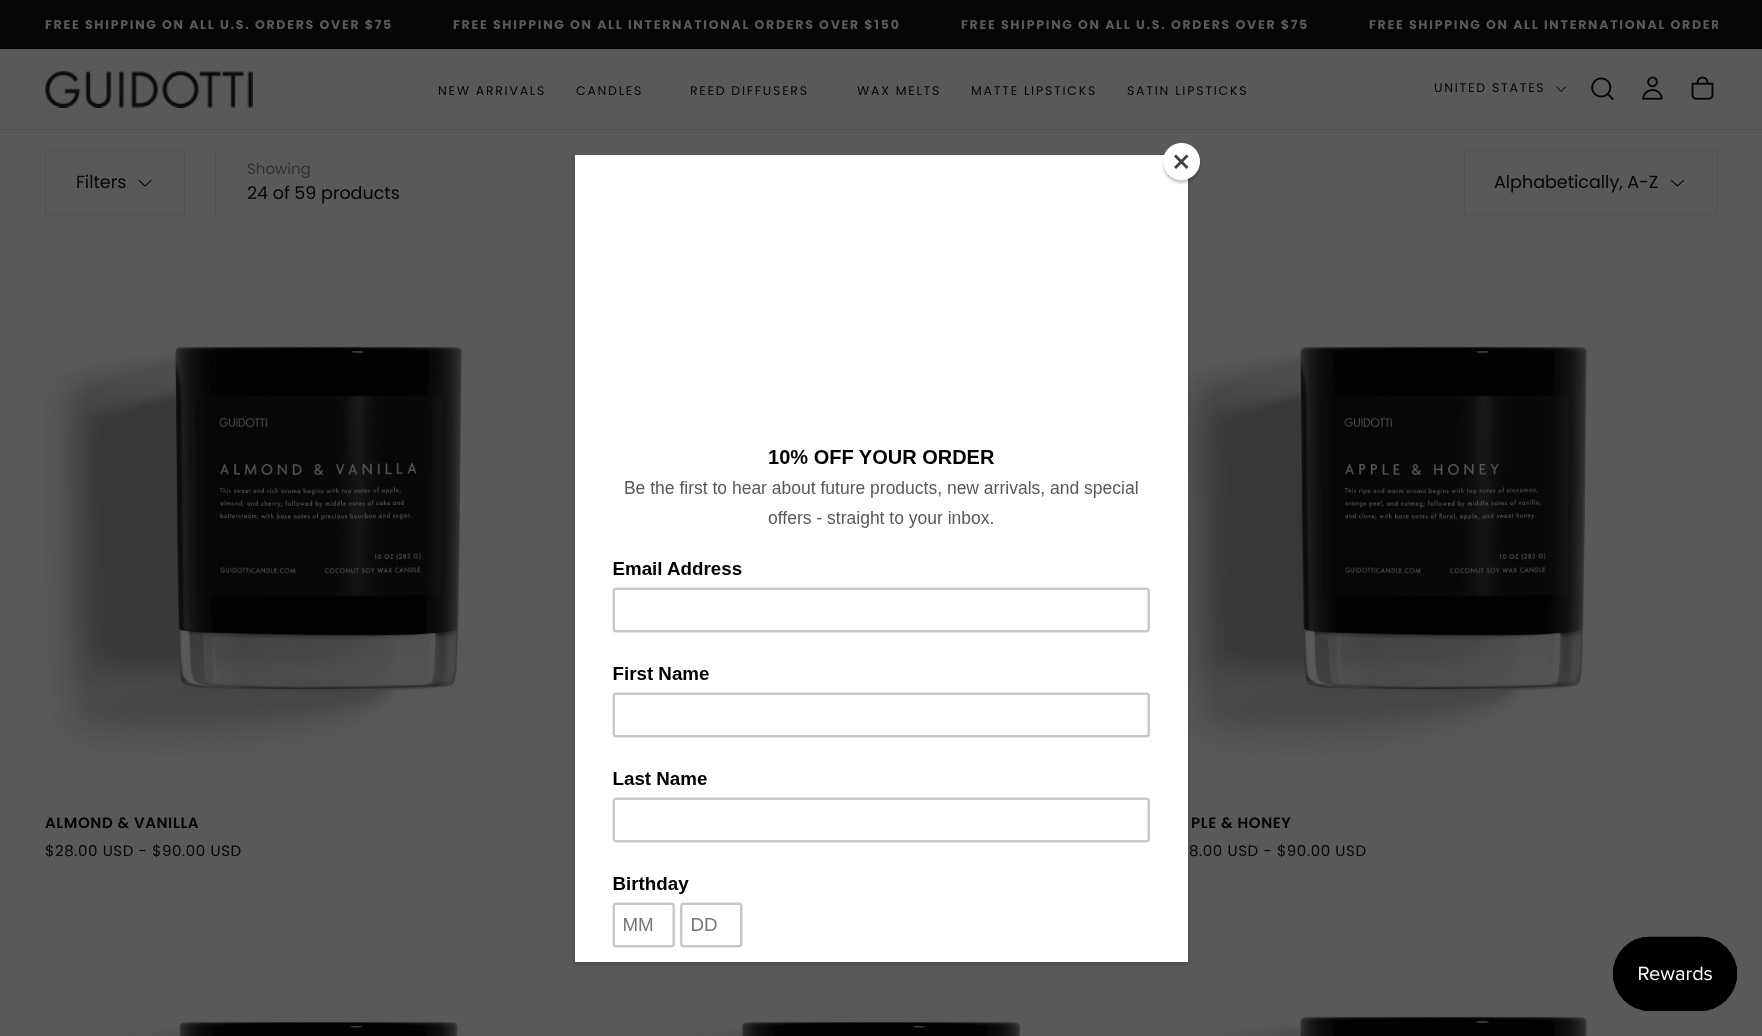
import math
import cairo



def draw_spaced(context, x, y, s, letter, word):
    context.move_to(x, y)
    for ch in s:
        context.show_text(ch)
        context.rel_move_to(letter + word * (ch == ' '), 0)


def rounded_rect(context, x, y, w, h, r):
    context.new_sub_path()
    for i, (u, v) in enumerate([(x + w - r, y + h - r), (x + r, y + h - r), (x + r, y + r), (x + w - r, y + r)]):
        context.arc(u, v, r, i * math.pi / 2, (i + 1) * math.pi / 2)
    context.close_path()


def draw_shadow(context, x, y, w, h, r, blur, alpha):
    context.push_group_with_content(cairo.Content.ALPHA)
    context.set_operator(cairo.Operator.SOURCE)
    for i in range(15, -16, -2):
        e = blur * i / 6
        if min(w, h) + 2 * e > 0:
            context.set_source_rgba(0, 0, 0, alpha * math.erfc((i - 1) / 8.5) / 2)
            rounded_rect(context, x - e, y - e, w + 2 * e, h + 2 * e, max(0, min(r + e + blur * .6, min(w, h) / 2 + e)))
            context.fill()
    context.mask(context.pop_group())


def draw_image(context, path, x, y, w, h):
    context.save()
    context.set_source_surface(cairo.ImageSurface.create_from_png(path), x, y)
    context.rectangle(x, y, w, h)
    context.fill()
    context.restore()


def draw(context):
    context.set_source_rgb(89 / 255, 89 / 255, 89 / 255)
    context.paint()
    context.set_source_rgb(6 / 255, 6 / 255, 6 / 255)
    context.rectangle(0, 0, 1762, 49)
    context.fill()
    context.set_source_rgb(81 / 255, 81 / 255, 81 / 255)
    context.rectangle(0, 129, 1762, 1)
    context.fill()
    draw_image(context, "images/1.png", 45, 71, 208, 37)
    context.new_path()
    context.move_to(1565.5, 87)
    context.line_to(1561, 91.5)
    context.line_to(1557, 87)
    context.set_source_rgb(6 / 255, 6 / 255, 6 / 255)
    context.set_line_width(0.8)
    context.set_line_cap(cairo.LineCap.ROUND)
    context.set_line_join(cairo.LineJoin.ROUND)
    context.stroke()
    draw_image(context, "images/2.png", 1591, 77, 23, 23)
    draw_image(context, "images/3.png", 1642, 76, 21, 24)
    draw_image(context, "images/4.png", 1691, 76, 23, 24)
    draw_image(context, "images/7.png", 1188, 346, 399, 413)
    context.set_source_rgb(0, 0, 0)
    draw_shadow(context, 575, 158, 613, 806, 0, 2.5, 0.2)
    draw_image(context, "images/5.png", 575, 155, 613, 807)
    draw_shadow(context, 1163, 145, 37, 38, 18.5, 1, 0.2)
    context.set_source_rgb(1, 1, 1)
    context.arc(1181.5, 161.5, 18.5, 0, 2 * math.pi)
    context.fill()
    context.set_source_rgb(65 / 255, 65 / 255, 65 / 255)
    context.new_path()
    context.move_to(1186.5, 154.5)
    context.line_to(1188.5, 156.5)
    context.line_to(1176, 169)
    context.line_to(1174, 167)
    context.close_path()
    context.fill()
    context.new_path()
    context.move_to(1174, 156.5)
    context.line_to(1176, 154.5)
    context.line_to(1188.5, 167)
    context.line_to(1186.5, 169)
    context.close_path()
    context.fill()
    context.rectangle(45.5, 150.5, 139, 64)
    context.set_source_rgb(82 / 255, 82 / 255, 82 / 255)
    context.set_line_width(1)
    context.set_line_cap(cairo.LineCap.BUTT)
    context.set_line_join(cairo.LineJoin.MITER)
    context.stroke()
    context.new_path()
    context.move_to(139, 180.5)
    context.line_to(145, 186)
    context.line_to(151, 180.5)
    context.set_source_rgb(6 / 255, 6 / 255, 6 / 255)
    context.set_line_width(1.1)
    context.set_line_cap(cairo.LineCap.ROUND)
    context.set_line_join(cairo.LineJoin.ROUND)
    context.stroke()
    context.set_source_rgb(82 / 255, 82 / 255, 82 / 255)
    context.rectangle(215, 150, 1, 65)
    context.fill()
    context.rectangle(1464.5, 150.5, 253, 64)
    context.set_line_width(1)
    context.set_line_cap(cairo.LineCap.BUTT)
    context.set_line_join(cairo.LineJoin.MITER)
    context.stroke()
    context.new_path()
    context.move_to(1671.5, 180.5)
    context.line_to(1677.5, 186)
    context.line_to(1683.5, 180.5)
    context.set_source_rgb(6 / 255, 6 / 255, 6 / 255)
    context.set_line_width(1.1)
    context.set_line_cap(cairo.LineCap.ROUND)
    context.set_line_join(cairo.LineJoin.ROUND)
    context.stroke()
    draw_image(context, "images/6.png", 45, 346, 417, 413)
    draw_image(context, "images/8.png", 114, 1022, 344, 14)
    draw_image(context, "images/9.png", 676, 1022, 345, 14)
    draw_image(context, "images/10.png", 1211, 1016, 376, 20)
    draw_image(context, "images/11.png", 1612, 936, 126, 75)
    context.select_font_face("Poppins", cairo.FontSlant.NORMAL, cairo.FontWeight.BOLD)
    context.set_font_size(12.5)
    context.set_source_rgb(89 / 255, 89 / 255, 89 / 255)
    draw_spaced(context, 45, 29, "FREE SHIPPING ON ALL U.S. ORDERS OVER $75", 1.75, 0)
    draw_spaced(context, 453, 29, "FREE SHIPPING ON ALL INTERNATIONAL ORDERS OVER $150", 1.75, 0)
    draw_spaced(context, 961, 29, "FREE SHIPPING ON ALL U.S. ORDERS OVER $75", 1.75, 0)
    context.save()
    context.rectangle(45, 10, 1673, 25)
    context.clip()
    draw_spaced(context, 1369, 29, "FREE SHIPPING ON ALL INTERNATIONAL ORDER", 1.75, 0)
    context.restore()
    context.select_font_face("Poppins")
    context.set_source_rgb(6 / 255, 6 / 255, 6 / 255)
    draw_spaced(context, 438, 95, "NEW ARRIVALS", 1.75, 0)
    draw_spaced(context, 576, 95, "CANDLES", 1.75, 0)
    draw_spaced(context, 690, 95, "REED DIFFUSERS", 1.75, 0)
    draw_spaced(context, 857, 95, "WAX MELTS", 1.75, 0)
    draw_spaced(context, 971, 95, "MATTE LIPSTICKS", 1.75, 0)
    draw_spaced(context, 1127, 95, "SATIN LIPSTICKS", 1.75, 0)
    draw_spaced(context, 1434, 92, "UNITED STATES", 1.75, 0)
    context.set_font_size(17.5)
    context.move_to(76, 188)
    context.show_text("Filters")
    context.set_font_size(15)
    context.set_source_rgb(48 / 255, 48 / 255, 48 / 255)
    context.move_to(247, 174)
    context.show_text("Showing")
    context.set_font_size(17.5)
    context.set_source_rgb(6 / 255, 6 / 255, 6 / 255)
    context.move_to(247, 199)
    context.show_text("24 of 59 products")
    context.move_to(1494, 188)
    context.show_text("Alphabetically, A-Z")
    context.select_font_face("Poppins SemiBold")
    context.set_font_size(15)
    draw_spaced(context, 45, 828, "ALMOND & VANILLA", 0.6, 0)
    context.select_font_face("Poppins")
    draw_spaced(context, 45, 856, "$28.00 USD - $90.00 USD", 0.6, 0)
    context.select_font_face("Poppins SemiBold")
    draw_spaced(context, 1191, 828, "PLE & HONEY", 0.6, 0)
    context.select_font_face("Poppins")
    draw_spaced(context, 1189, 856, "8.00 USD - $90.00 USD", 0.6, 0)


surface = cairo.ImageSurface(cairo.Format.RGB24, 1762, 1036)
context = cairo.Context(surface)
options = cairo.FontOptions()
options.set_hint_metrics(cairo.HintMetrics.OFF)
options.set_hint_style(cairo.HintStyle.NONE)
context.set_font_options(options)
context.set_miter_limit(4)
draw(context)
surface.write_to_png("out.png")
